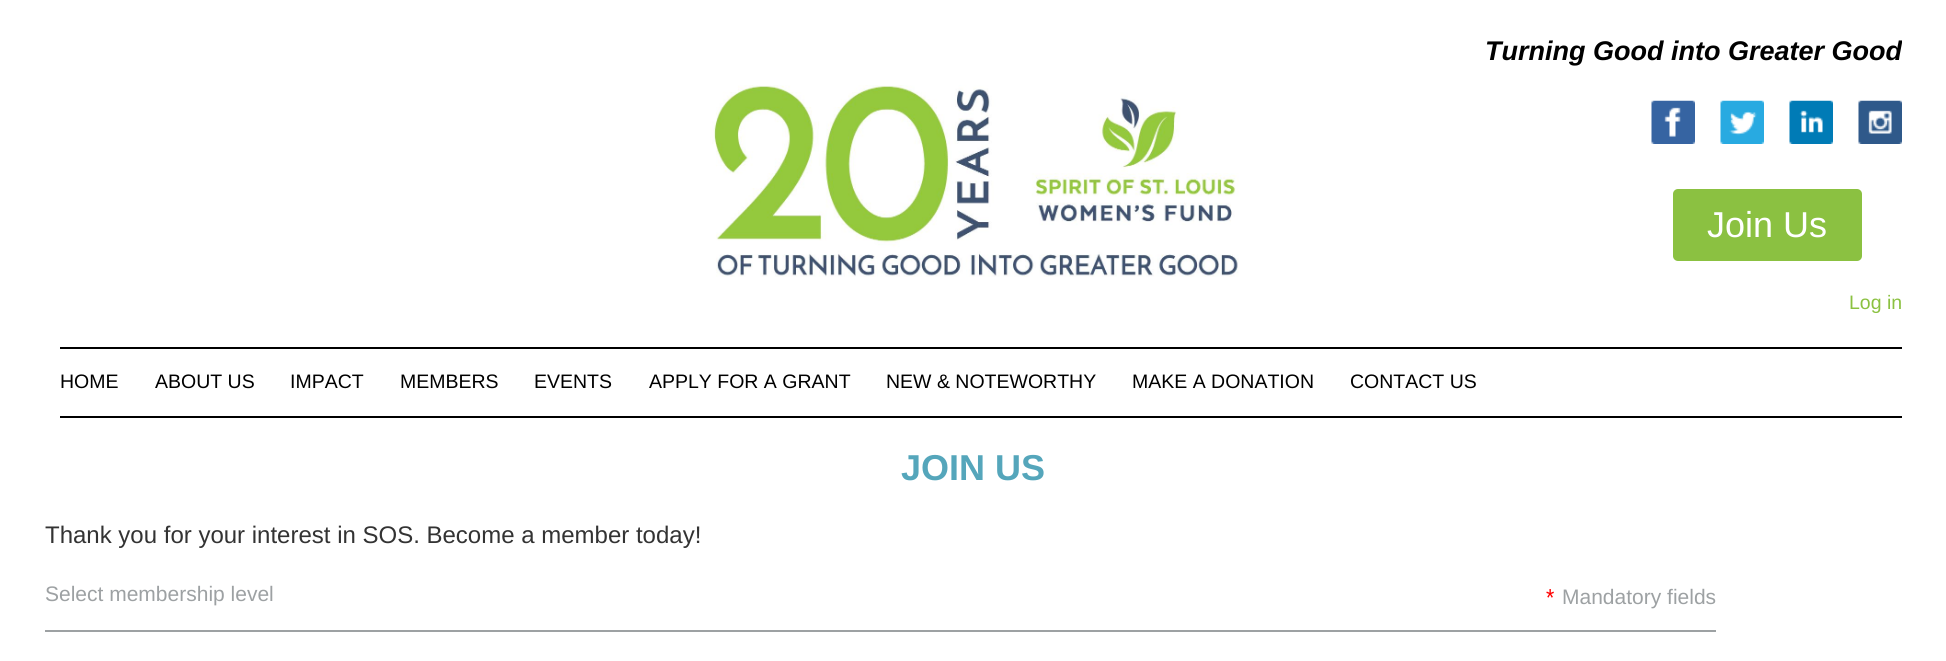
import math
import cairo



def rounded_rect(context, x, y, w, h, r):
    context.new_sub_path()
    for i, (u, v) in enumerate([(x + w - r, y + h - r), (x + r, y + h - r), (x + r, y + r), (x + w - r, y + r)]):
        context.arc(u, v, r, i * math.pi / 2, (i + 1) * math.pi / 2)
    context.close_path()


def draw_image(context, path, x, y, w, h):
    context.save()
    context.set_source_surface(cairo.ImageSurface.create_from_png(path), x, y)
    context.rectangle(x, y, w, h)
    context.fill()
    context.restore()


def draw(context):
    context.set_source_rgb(1, 1, 1)
    context.paint()
    draw_image(context, "images/1.png", 710, 85, 529, 192)
    draw_image(context, "images/2.png", 1651, 100, 44, 44)
    draw_image(context, "images/3.png", 1720, 100, 44, 44)
    draw_image(context, "images/4.png", 1789, 100, 44, 44)
    draw_image(context, "images/5.png", 1858, 100, 44, 44)
    context.set_source_rgb(139 / 255, 193 / 255, 65 / 255)
    rounded_rect(context, 1673, 189, 189, 72, 5)
    context.fill()
    context.set_source_rgb(0, 0, 0)
    context.rectangle(60, 347, 1842, 2)
    context.fill()
    context.rectangle(60, 416, 1842, 2)
    context.fill()
    context.set_source_rgb(157 / 255, 161 / 255, 163 / 255)
    context.rectangle(45, 630, 1671, 2)
    context.fill()
    context.save()
    context.rectangle(1283, 33, 619, 38)
    context.clip()
    context.select_font_face("Liberation Sans", cairo.FontSlant.ITALIC, cairo.FontWeight.BOLD)
    context.set_font_size(27)
    context.set_source_rgb(0, 0, 0)
    context.move_to(1485, 60)
    context.show_text("Turning Good into Greater Good")
    context.restore()
    context.select_font_face("Liberation Sans")
    context.set_font_size(36)
    context.set_source_rgb(1, 1, 1)
    context.move_to(1707, 237)
    context.show_text("Join Us")
    context.set_font_size(19.5)
    context.set_source_rgb(139 / 255, 193 / 255, 65 / 255)
    context.move_to(1849, 309)
    context.show_text("Log in")
    context.set_source_rgb(0, 0, 0)
    context.move_to(60, 388)
    context.show_text("HOME")
    context.move_to(155, 388)
    context.show_text("ABOUT US")
    context.move_to(290, 388)
    context.show_text("IMPACT")
    context.move_to(400, 388)
    context.show_text("MEMBERS")
    context.move_to(534, 388)
    context.show_text("EVENTS")
    context.move_to(649, 388)
    context.show_text("APPLY FOR A GRANT")
    context.move_to(886, 388)
    context.show_text("NEW & NOTEWORTHY")
    context.move_to(1132, 388)
    context.show_text("MAKE A DONATION")
    context.move_to(1350, 388)
    context.show_text("CONTACT US")
    context.select_font_face("Liberation Sans", cairo.FontSlant.NORMAL, cairo.FontWeight.BOLD)
    context.set_font_size(36)
    context.set_source_rgb(85 / 255, 166 / 255, 187 / 255)
    context.move_to(901, 480)
    context.show_text("JOIN US")
    context.select_font_face("Liberation Sans")
    context.set_font_size(24)
    context.set_source_rgb(51 / 255, 51 / 255, 51 / 255)
    context.move_to(45, 543)
    context.show_text("Thank you for your interest in SOS. Become a member today!")
    context.set_font_size(21)
    context.set_source_rgb(157 / 255, 161 / 255, 163 / 255)
    context.move_to(45, 601)
    context.show_text("Select membership level")
    context.select_font_face("Roboto Condensed")
    context.set_source_rgb(1, 0, 0)
    context.move_to(1546, 604)
    context.show_text("*")
    context.select_font_face("Liberation Sans")
    context.set_source_rgb(157 / 255, 161 / 255, 163 / 255)
    context.move_to(1562, 604)
    context.show_text("Mandatory fields")


surface = cairo.ImageSurface(cairo.Format.RGB24, 1946, 661)
context = cairo.Context(surface)
options = cairo.FontOptions()
options.set_hint_metrics(cairo.HintMetrics.OFF)
options.set_hint_style(cairo.HintStyle.NONE)
context.set_font_options(options)
context.set_miter_limit(4)
draw(context)
surface.write_to_png("out.png")
